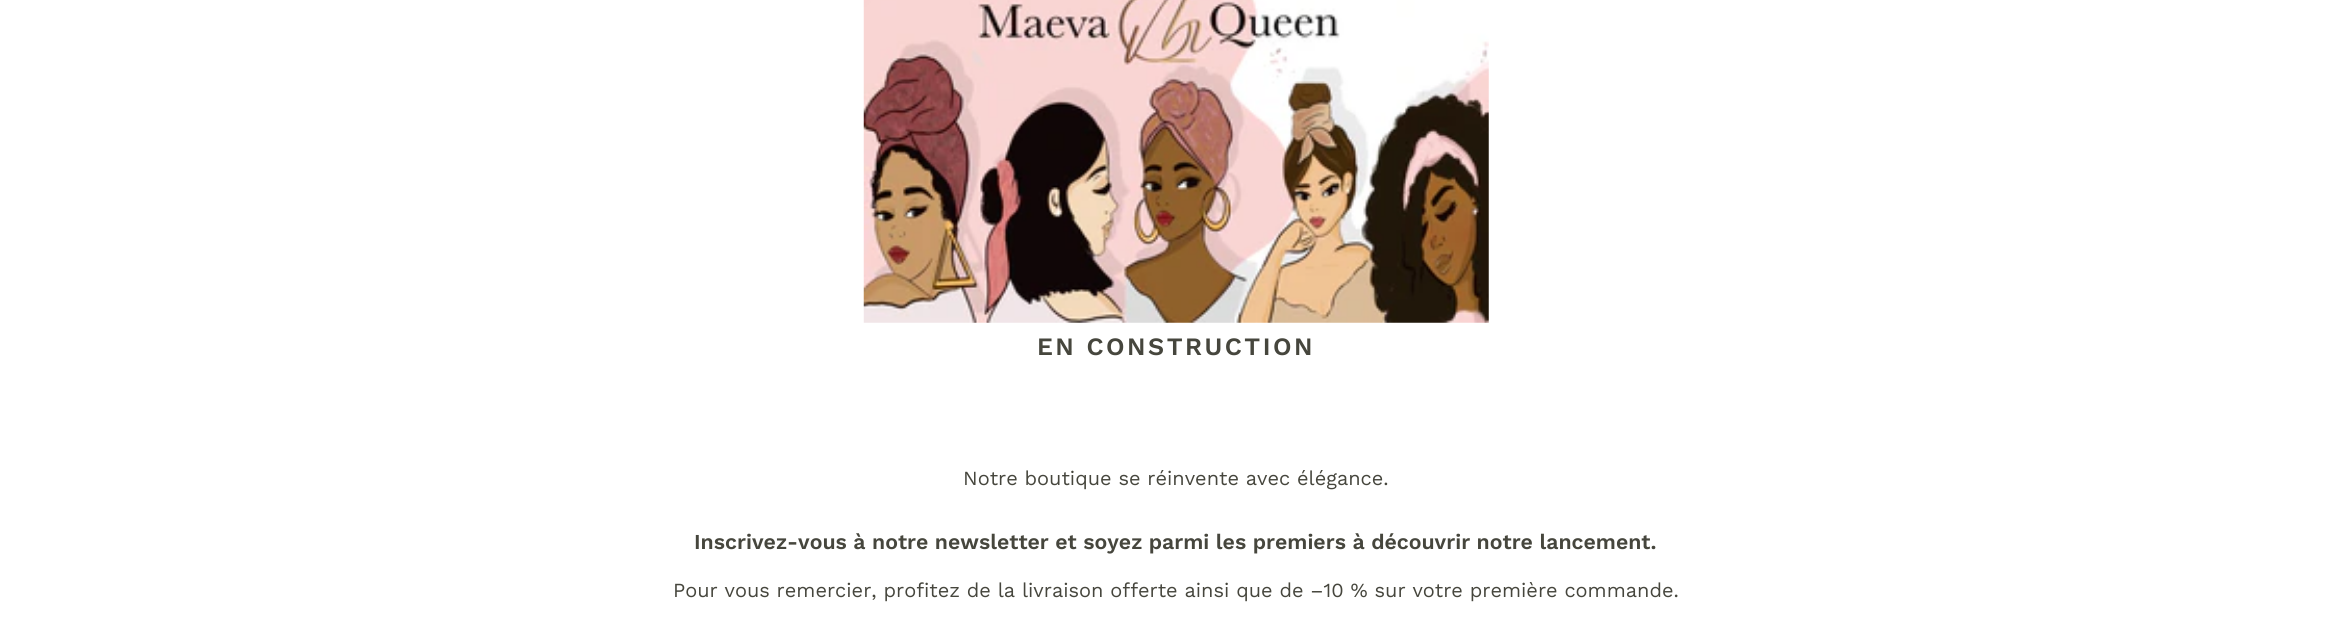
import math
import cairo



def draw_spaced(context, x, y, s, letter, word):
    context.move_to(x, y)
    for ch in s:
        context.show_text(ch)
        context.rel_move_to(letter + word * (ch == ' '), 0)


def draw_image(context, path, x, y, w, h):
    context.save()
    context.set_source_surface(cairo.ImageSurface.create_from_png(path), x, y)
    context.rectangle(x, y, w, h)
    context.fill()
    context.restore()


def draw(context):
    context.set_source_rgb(1, 1, 1)
    context.paint()
    draw_image(context, "images/1.png", 863, 0, 626, 323)
    context.select_font_face("Work Sans SemiBold")
    context.set_font_size(25)
    context.set_source_rgb(70 / 255, 70 / 255, 61 / 255)
    draw_spaced(context, 1037, 355, "EN CONSTRUCTION", 2.5, 0)
    context.select_font_face("Work Sans")
    context.set_font_size(20)
    context.move_to(963, 485)
    context.show_text("Notre boutique se réinvente avec élégance.")
    context.select_font_face("Work Sans SemiBold")
    context.set_font_size(21.25)
    context.move_to(694, 549)
    context.show_text("Inscrivez-vous à notre newsletter et soyez parmi les premiers à découvrir notre lancement.")
    context.select_font_face("Work Sans")
    context.set_font_size(20)
    context.move_to(673, 597)
    context.show_text("Pour vous remercier, profitez de la livraison offerte ainsi que de –10 % sur votre première commande.")


surface = cairo.ImageSurface(cairo.Format.RGB24, 2351, 630)
context = cairo.Context(surface)
options = cairo.FontOptions()
options.set_hint_metrics(cairo.HintMetrics.OFF)
options.set_hint_style(cairo.HintStyle.NONE)
context.set_font_options(options)
context.set_miter_limit(4)
draw(context)
surface.write_to_png("out.png")
